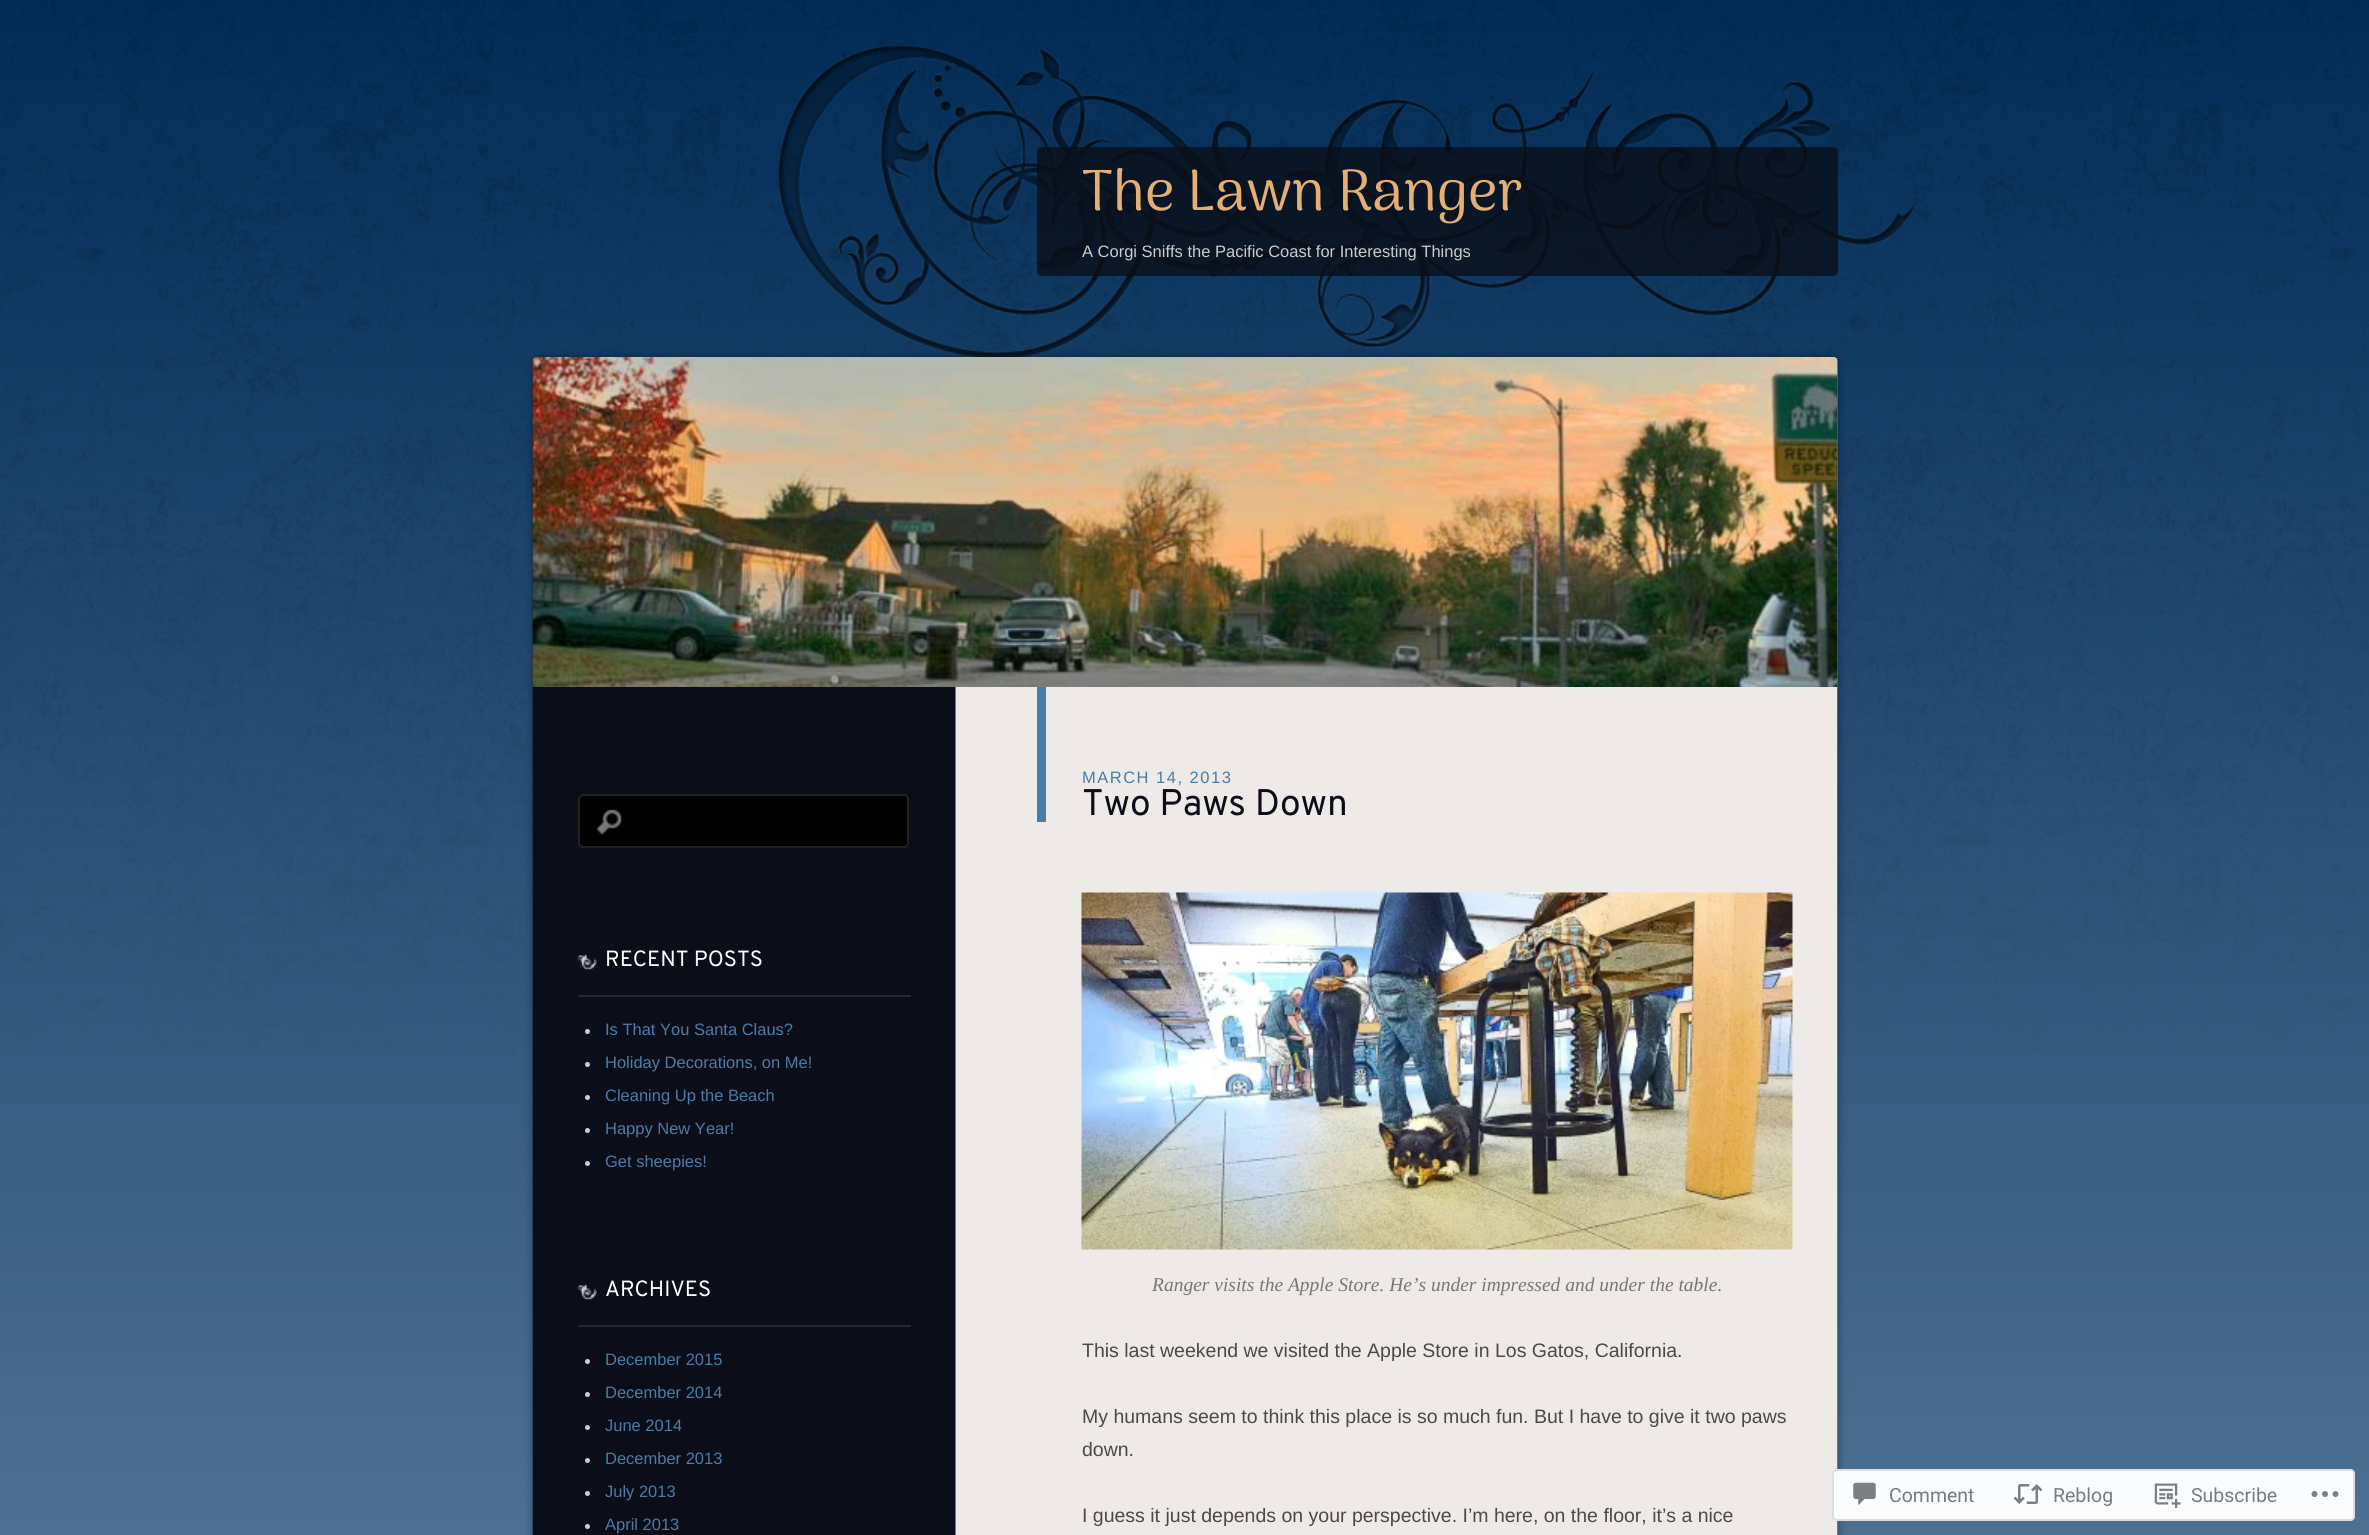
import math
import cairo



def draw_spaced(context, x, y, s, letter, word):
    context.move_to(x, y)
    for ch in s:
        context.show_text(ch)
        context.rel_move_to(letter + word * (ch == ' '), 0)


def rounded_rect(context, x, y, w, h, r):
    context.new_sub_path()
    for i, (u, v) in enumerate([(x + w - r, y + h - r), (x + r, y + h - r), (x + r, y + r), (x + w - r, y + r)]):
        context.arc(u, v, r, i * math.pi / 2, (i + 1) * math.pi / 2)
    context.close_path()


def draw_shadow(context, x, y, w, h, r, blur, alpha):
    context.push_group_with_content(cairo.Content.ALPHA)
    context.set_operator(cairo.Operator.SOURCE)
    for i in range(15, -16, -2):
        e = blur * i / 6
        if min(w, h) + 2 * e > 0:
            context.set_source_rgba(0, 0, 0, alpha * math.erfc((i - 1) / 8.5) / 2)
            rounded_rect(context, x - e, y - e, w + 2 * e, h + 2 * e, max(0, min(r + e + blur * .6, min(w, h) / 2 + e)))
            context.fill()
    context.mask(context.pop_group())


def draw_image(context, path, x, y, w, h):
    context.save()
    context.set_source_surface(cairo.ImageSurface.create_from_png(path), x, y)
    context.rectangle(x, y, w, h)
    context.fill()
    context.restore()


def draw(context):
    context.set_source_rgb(1, 1, 1)
    context.paint()
    gradient = cairo.LinearGradient(0, 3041, 0, 0)
    gradient.add_color_stop_rgba(0, 1, 203 / 255, 112 / 255, 1)
    gradient.add_color_stop_rgba(0.3, 107 / 255, 138 / 255, 169 / 255, 1)
    gradient.add_color_stop_rgba(1, 1 / 255, 44 / 255, 87 / 255, 1)
    context.set_source(gradient)
    context.rectangle(0, 0, 2369, 1535)
    context.fill()
    draw_image(context, "images/1.png", 0, 0, 2369, 1056)
    draw_image(context, "images/2.png", 778, 45, 1139, 312)
    context.set_source_rgba(11 / 255, 14 / 255, 24 / 255, 0.8)
    rounded_rect(context, 1037, 147, 801, 129, 5)
    context.fill()
    context.set_source_rgb(0, 0, 0)
    draw_shadow(context, 533, 357, 1305, 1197, 5, 4.5, 0.4)
    draw_image(context, "images/3.png", 532, 357, 1306, 1178)
    draw_image(context, "images/4.png", 532, 357, 1306, 330)
    context.set_source_rgb(0, 0, 0)
    rounded_rect(context, 578, 794, 331, 54, 5)
    context.fill()
    draw_image(context, "images/5.png", 596, 809, 26, 26)
    rounded_rect(context, 579, 795, 329, 52, 4)
    context.set_source_rgb(34 / 255, 34 / 255, 34 / 255)
    context.stroke()
    draw_image(context, "images/6.png", 577, 954, 20, 16)
    context.set_source_rgb(37 / 255, 40 / 255, 50 / 255)
    context.rectangle(578, 995, 333, 2)
    context.fill()
    context.set_source_rgb(204 / 255, 204 / 255, 204 / 255)
    context.arc(587.5, 1031.5, 2.5, 0, 2 * math.pi)
    context.fill()
    context.arc(587.5, 1064.5, 2.5, 0, 2 * math.pi)
    context.fill()
    context.arc(587.5, 1097.5, 2.5, 0, 2 * math.pi)
    context.fill()
    context.arc(587.5, 1130.5, 2.5, 0, 2 * math.pi)
    context.fill()
    context.arc(587.5, 1163.5, 2.5, 0, 2 * math.pi)
    context.fill()
    draw_image(context, "images/6.png", 577, 1284, 20, 16)
    context.set_source_rgb(37 / 255, 40 / 255, 50 / 255)
    context.rectangle(578, 1325, 333, 2)
    context.fill()
    context.set_source_rgb(204 / 255, 204 / 255, 204 / 255)
    context.arc(587.5, 1361.5, 2.5, 0, 2 * math.pi)
    context.fill()
    context.arc(587.5, 1394.5, 2.5, 0, 2 * math.pi)
    context.fill()
    context.arc(587.5, 1427.5, 2.5, 0, 2 * math.pi)
    context.fill()
    context.arc(587.5, 1460.5, 2.5, 0, 2 * math.pi)
    context.fill()
    context.arc(587.5, 1493.5, 2.5, 0, 2 * math.pi)
    context.fill()
    context.arc(587.5, 1526.5, 2.5, 0, 2 * math.pi)
    context.fill()
    context.set_source_rgb(73 / 255, 124 / 255, 167 / 255)
    context.rectangle(1037, 687, 9, 135)
    context.fill()
    draw_image(context, "images/7.png", 1081, 892, 712, 358)
    context.set_source_rgba(1, 1, 1, 0.98)
    rounded_rect(context, 1832, 1469, 523, 52, 5)
    context.fill()
    rounded_rect(context, 1833, 1470, 521, 50, 4)
    context.set_source_rgba(220 / 255, 220 / 255, 222 / 255, 0.98)
    context.stroke()
    draw_image(context, "images/8.png", 1853, 1482, 23, 24)
    draw_image(context, "images/9.png", 2013, 1484, 30, 20)
    draw_image(context, "images/10.png", 2154, 1483, 27, 25)
    draw_image(context, "images/11.png", 2311, 1491, 28, 6)
    context.select_font_face("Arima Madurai")
    context.set_font_size(57.75)
    context.set_source_rgb(229 / 255, 175 / 255, 116 / 255)
    context.move_to(1082, 210)
    context.show_text("The Lawn Ranger")
    context.select_font_face("Liberation Sans")
    context.set_font_size(16.5)
    context.set_source_rgb(204 / 255, 204 / 255, 204 / 255)
    context.move_to(1082, 257)
    context.show_text("A Corgi Sniffs the Pacific Coast for Interesting Things")
    context.select_font_face("Overpass")
    context.set_font_size(22)
    context.set_source_rgb(1, 1, 1)
    context.move_to(605, 966)
    context.show_text("RECENT POSTS")
    context.select_font_face("Liberation Sans")
    context.set_font_size(16.5)
    context.set_source_rgb(73 / 255, 124 / 255, 167 / 255)
    context.move_to(605, 1035)
    context.show_text("Is That You Santa Claus?")
    context.move_to(605, 1068)
    context.show_text("Holiday Decorations, on Me!")
    context.move_to(605, 1101)
    context.show_text("Cleaning Up the Beach")
    context.move_to(605, 1134)
    context.show_text("Happy New Year!")
    context.move_to(605, 1167)
    context.show_text("Get sheepies!")
    context.select_font_face("Overpass")
    context.set_font_size(22)
    context.set_source_rgb(1, 1, 1)
    context.move_to(605, 1296)
    context.show_text("ARCHIVES")
    context.select_font_face("Liberation Sans")
    context.set_font_size(16.5)
    context.set_source_rgb(73 / 255, 124 / 255, 167 / 255)
    context.move_to(605, 1365)
    context.show_text("December 2015")
    context.move_to(605, 1398)
    context.show_text("December 2014")
    context.move_to(605, 1431)
    context.show_text("June 2014")
    context.move_to(605, 1464)
    context.show_text("December 2013")
    context.move_to(605, 1497)
    context.show_text("July 2013")
    context.move_to(605, 1530)
    context.show_text("April 2013")
    draw_spaced(context, 1082, 783, "MARCH 14, 2013", 1.5, 0)
    context.select_font_face("Overpass")
    context.set_font_size(37)
    context.set_source_rgb(11 / 255, 14 / 255, 24 / 255)
    context.move_to(1082, 815)
    context.show_text("Two Paws Down")
    context.select_font_face("Liberation Serif", cairo.FontSlant.ITALIC)
    context.set_font_size(19.5)
    context.set_source_rgb(119 / 255, 119 / 255, 119 / 255)
    context.move_to(1152, 1291)
    context.show_text("Ranger visits the Apple Store. He’s under impressed and under the table.")
    context.select_font_face("Liberation Sans")
    context.set_source_rgb(74 / 255, 74 / 255, 73 / 255)
    context.move_to(1082, 1357)
    context.show_text("This last weekend we visited the Apple Store in Los Gatos, California.")
    context.move_to(1082, 1423)
    context.show_text("My humans seem to think this place is so much fun. But I have to give it two paws")
    context.move_to(1082, 1456)
    context.show_text("down.")
    context.move_to(1082, 1522)
    context.show_text("I guess it just depends on your perspective. I’m here, on the floor, it’s a nice")
    context.select_font_face("Roboto")
    context.set_source_rgb(119 / 255, 124 / 255, 130 / 255)
    context.move_to(1889, 1502)
    context.show_text("Comment")
    context.move_to(2053, 1502)
    context.show_text("Reblog")
    context.move_to(2191, 1502)
    context.show_text("Subscribe")


surface = cairo.ImageSurface(cairo.Format.RGB24, 2369, 1535)
context = cairo.Context(surface)
options = cairo.FontOptions()
options.set_hint_metrics(cairo.HintMetrics.OFF)
options.set_hint_style(cairo.HintStyle.NONE)
context.set_font_options(options)
context.set_miter_limit(4)
draw(context)
surface.write_to_png("out.png")
